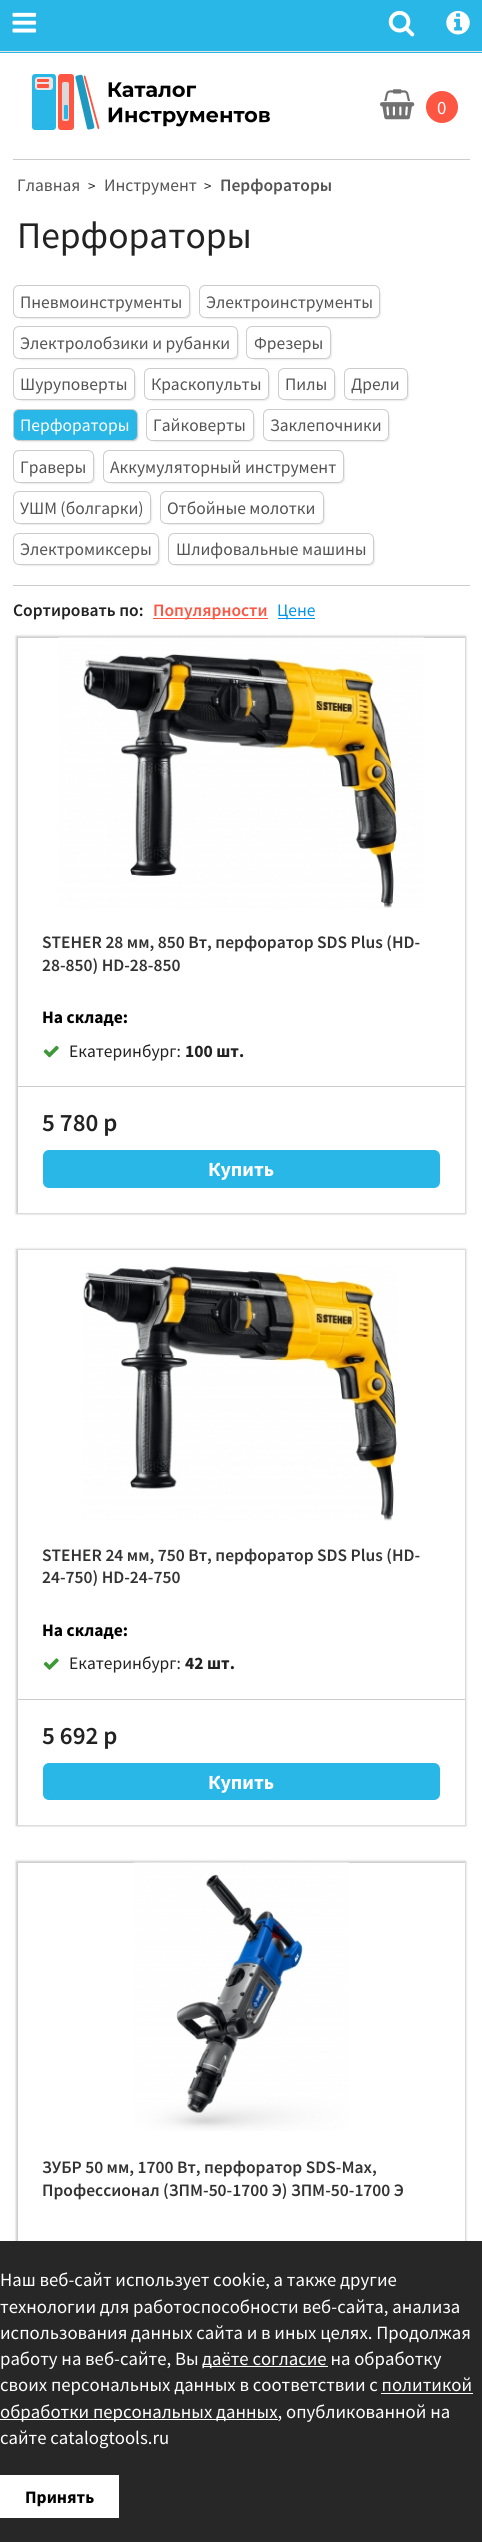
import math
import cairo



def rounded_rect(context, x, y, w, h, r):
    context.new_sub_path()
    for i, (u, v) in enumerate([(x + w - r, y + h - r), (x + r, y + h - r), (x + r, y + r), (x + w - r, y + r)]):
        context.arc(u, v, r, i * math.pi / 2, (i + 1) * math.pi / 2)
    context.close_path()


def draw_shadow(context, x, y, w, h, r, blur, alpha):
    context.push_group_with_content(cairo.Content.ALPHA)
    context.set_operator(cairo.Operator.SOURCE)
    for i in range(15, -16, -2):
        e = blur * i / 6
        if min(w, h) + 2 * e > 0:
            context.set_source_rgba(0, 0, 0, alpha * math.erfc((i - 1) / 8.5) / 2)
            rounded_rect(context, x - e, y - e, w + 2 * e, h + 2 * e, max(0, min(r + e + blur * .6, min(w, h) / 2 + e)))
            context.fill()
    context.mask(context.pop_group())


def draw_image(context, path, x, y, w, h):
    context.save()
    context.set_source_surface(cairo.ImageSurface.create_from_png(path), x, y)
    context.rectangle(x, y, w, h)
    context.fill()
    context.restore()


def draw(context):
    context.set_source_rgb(1, 1, 1)
    context.paint()
    context.set_source_rgb(40 / 255, 183 / 255, 231 / 255)
    context.rectangle(0, 0, 482, 53)
    context.fill()
    context.set_source_rgb(229 / 255, 229 / 255, 229 / 255)
    context.rectangle(0, 51, 482, 1)
    context.fill()
    draw_image(context, "images/1.png", 12, 12, 25, 21)
    draw_image(context, "images/2.png", 388, 10, 27, 27)
    draw_image(context, "images/3.png", 446, 10, 24, 25)
    draw_image(context, "images/4.png", 32, 74, 238, 56)
    draw_image(context, "images/5.png", 380, 89, 35, 31)
    context.set_source_rgb(253 / 255, 87 / 255, 68 / 255)
    context.arc(442, 107, 16, 0, 2 * math.pi)
    context.fill()
    context.set_source_rgb(204 / 255, 204 / 255, 204 / 255)
    context.rectangle(13, 159, 457, 1)
    context.fill()
    context.save()
    context.set_fill_rule(cairo.FillRule.EVEN_ODD)
    context.new_path()
    context.move_to(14, 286)
    context.line_to(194, 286)
    context.line_to(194, 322)
    context.line_to(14, 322)
    context.close_path()
    context.move_to(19, 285)
    context.line_to(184, 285)
    context.curve_to(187.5, 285, 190, 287.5, 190, 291)
    context.line_to(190, 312)
    context.curve_to(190, 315.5, 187.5, 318, 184, 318)
    context.line_to(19, 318)
    context.curve_to(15.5, 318, 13, 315.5, 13, 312)
    context.line_to(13, 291)
    context.curve_to(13, 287.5, 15.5, 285, 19, 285)
    context.close_path()
    context.clip()
    context.set_source_rgb(206 / 255, 206 / 255, 206 / 255)
    draw_shadow(context, 18, 290, 172, 28, 4, 1, 1)
    context.restore()
    rounded_rect(context, 13.5, 285.5, 176, 32, 5.5)
    context.set_line_width(1)
    context.stroke()
    context.save()
    context.set_fill_rule(cairo.FillRule.EVEN_ODD)
    context.new_path()
    context.move_to(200, 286)
    context.line_to(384, 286)
    context.line_to(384, 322)
    context.line_to(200, 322)
    context.close_path()
    context.move_to(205, 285)
    context.line_to(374, 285)
    context.curve_to(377.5, 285, 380, 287.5, 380, 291)
    context.line_to(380, 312)
    context.curve_to(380, 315.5, 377.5, 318, 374, 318)
    context.line_to(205, 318)
    context.curve_to(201.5, 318, 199, 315.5, 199, 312)
    context.line_to(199, 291)
    context.curve_to(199, 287.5, 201.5, 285, 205, 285)
    context.close_path()
    context.clip()
    context.set_source_rgb(206 / 255, 206 / 255, 206 / 255)
    draw_shadow(context, 204, 290, 176, 28, 4, 1, 1)
    context.restore()
    rounded_rect(context, 199.5, 285.5, 180, 32, 5.5)
    context.stroke()
    context.save()
    context.set_fill_rule(cairo.FillRule.EVEN_ODD)
    context.new_path()
    context.move_to(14, 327)
    context.line_to(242, 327)
    context.line_to(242, 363)
    context.line_to(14, 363)
    context.close_path()
    context.move_to(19, 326)
    context.line_to(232, 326)
    context.curve_to(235.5, 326, 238, 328.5, 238, 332)
    context.line_to(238, 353)
    context.curve_to(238, 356.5, 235.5, 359, 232, 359)
    context.line_to(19, 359)
    context.curve_to(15.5, 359, 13, 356.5, 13, 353)
    context.line_to(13, 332)
    context.curve_to(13, 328.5, 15.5, 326, 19, 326)
    context.close_path()
    context.clip()
    context.set_source_rgb(206 / 255, 206 / 255, 206 / 255)
    draw_shadow(context, 18, 331, 220, 28, 4, 1, 1)
    context.restore()
    rounded_rect(context, 13.5, 326.5, 224, 32, 5.5)
    context.stroke()
    context.save()
    context.set_fill_rule(cairo.FillRule.EVEN_ODD)
    context.new_path()
    context.move_to(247, 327)
    context.line_to(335, 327)
    context.line_to(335, 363)
    context.line_to(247, 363)
    context.close_path()
    context.move_to(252, 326)
    context.line_to(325, 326)
    context.curve_to(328.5, 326, 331, 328.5, 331, 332)
    context.line_to(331, 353)
    context.curve_to(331, 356.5, 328.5, 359, 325, 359)
    context.line_to(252, 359)
    context.curve_to(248.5, 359, 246, 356.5, 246, 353)
    context.line_to(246, 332)
    context.curve_to(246, 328.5, 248.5, 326, 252, 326)
    context.close_path()
    context.clip()
    context.set_source_rgb(206 / 255, 206 / 255, 206 / 255)
    draw_shadow(context, 251, 331, 80, 28, 4, 1, 1)
    context.restore()
    rounded_rect(context, 246.5, 326.5, 84, 32, 5.5)
    context.stroke()
    context.save()
    context.set_fill_rule(cairo.FillRule.EVEN_ODD)
    context.new_path()
    context.move_to(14, 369)
    context.line_to(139, 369)
    context.line_to(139, 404)
    context.line_to(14, 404)
    context.close_path()
    context.move_to(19, 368)
    context.line_to(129, 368)
    context.curve_to(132.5, 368, 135, 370.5, 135, 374)
    context.line_to(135, 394)
    context.curve_to(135, 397.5, 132.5, 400, 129, 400)
    context.line_to(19, 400)
    context.curve_to(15.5, 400, 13, 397.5, 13, 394)
    context.line_to(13, 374)
    context.curve_to(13, 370.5, 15.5, 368, 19, 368)
    context.close_path()
    context.clip()
    context.set_source_rgb(206 / 255, 206 / 255, 206 / 255)
    draw_shadow(context, 18, 373, 117, 27, 4, 1, 1)
    context.restore()
    rounded_rect(context, 13.5, 368.5, 121, 31, 5.5)
    context.stroke()
    context.save()
    context.set_fill_rule(cairo.FillRule.EVEN_ODD)
    context.new_path()
    context.move_to(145, 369)
    context.line_to(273, 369)
    context.line_to(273, 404)
    context.line_to(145, 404)
    context.close_path()
    context.move_to(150, 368)
    context.line_to(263, 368)
    context.curve_to(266.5, 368, 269, 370.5, 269, 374)
    context.line_to(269, 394)
    context.curve_to(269, 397.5, 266.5, 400, 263, 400)
    context.line_to(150, 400)
    context.curve_to(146.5, 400, 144, 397.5, 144, 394)
    context.line_to(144, 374)
    context.curve_to(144, 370.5, 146.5, 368, 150, 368)
    context.close_path()
    context.clip()
    context.set_source_rgb(206 / 255, 206 / 255, 206 / 255)
    draw_shadow(context, 149, 373, 120, 27, 4, 1, 1)
    context.restore()
    rounded_rect(context, 144.5, 368.5, 124, 31, 5.5)
    context.stroke()
    context.save()
    context.set_fill_rule(cairo.FillRule.EVEN_ODD)
    context.new_path()
    context.move_to(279, 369)
    context.line_to(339, 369)
    context.line_to(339, 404)
    context.line_to(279, 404)
    context.close_path()
    context.move_to(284, 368)
    context.line_to(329, 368)
    context.curve_to(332.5, 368, 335, 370.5, 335, 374)
    context.line_to(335, 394)
    context.curve_to(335, 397.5, 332.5, 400, 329, 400)
    context.line_to(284, 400)
    context.curve_to(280.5, 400, 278, 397.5, 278, 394)
    context.line_to(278, 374)
    context.curve_to(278, 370.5, 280.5, 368, 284, 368)
    context.close_path()
    context.clip()
    context.set_source_rgb(206 / 255, 206 / 255, 206 / 255)
    draw_shadow(context, 283, 373, 52, 27, 4, 1, 1)
    context.restore()
    rounded_rect(context, 278.5, 368.5, 56, 31, 5.5)
    context.stroke()
    context.save()
    context.set_fill_rule(cairo.FillRule.EVEN_ODD)
    context.new_path()
    context.move_to(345, 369)
    context.line_to(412, 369)
    context.line_to(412, 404)
    context.line_to(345, 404)
    context.close_path()
    context.move_to(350, 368)
    context.line_to(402, 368)
    context.curve_to(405.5, 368, 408, 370.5, 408, 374)
    context.line_to(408, 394)
    context.curve_to(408, 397.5, 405.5, 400, 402, 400)
    context.line_to(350, 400)
    context.curve_to(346.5, 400, 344, 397.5, 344, 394)
    context.line_to(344, 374)
    context.curve_to(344, 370.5, 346.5, 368, 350, 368)
    context.close_path()
    context.clip()
    context.set_source_rgb(206 / 255, 206 / 255, 206 / 255)
    draw_shadow(context, 349, 373, 59, 27, 4, 1, 1)
    context.restore()
    rounded_rect(context, 344.5, 368.5, 63, 31, 5.5)
    context.stroke()
    context.set_source_rgb(206 / 255, 206 / 255, 206 / 255)
    draw_shadow(context, 18, 414, 120, 27, 4, 1, 1)
    context.set_source_rgb(40 / 255, 183 / 255, 231 / 255)
    rounded_rect(context, 13.5, 409.5, 124, 31, 5.5)
    context.fill_preserve()
    context.set_source_rgb(204 / 255, 204 / 255, 204 / 255)
    context.stroke()
    context.save()
    context.set_fill_rule(cairo.FillRule.EVEN_ODD)
    context.new_path()
    context.move_to(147, 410)
    context.line_to(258, 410)
    context.line_to(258, 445)
    context.line_to(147, 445)
    context.close_path()
    context.move_to(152, 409)
    context.line_to(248, 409)
    context.curve_to(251.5, 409, 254, 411.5, 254, 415)
    context.line_to(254, 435)
    context.curve_to(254, 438.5, 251.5, 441, 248, 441)
    context.line_to(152, 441)
    context.curve_to(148.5, 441, 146, 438.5, 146, 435)
    context.line_to(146, 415)
    context.curve_to(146, 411.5, 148.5, 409, 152, 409)
    context.close_path()
    context.clip()
    context.set_source_rgb(206 / 255, 206 / 255, 206 / 255)
    draw_shadow(context, 151, 414, 103, 27, 4, 1, 1)
    context.restore()
    rounded_rect(context, 146.5, 409.5, 107, 31, 5.5)
    context.stroke()
    context.save()
    context.set_fill_rule(cairo.FillRule.EVEN_ODD)
    context.new_path()
    context.move_to(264, 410)
    context.line_to(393, 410)
    context.line_to(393, 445)
    context.line_to(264, 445)
    context.close_path()
    context.move_to(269, 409)
    context.line_to(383, 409)
    context.curve_to(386.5, 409, 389, 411.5, 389, 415)
    context.line_to(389, 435)
    context.curve_to(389, 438.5, 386.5, 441, 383, 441)
    context.line_to(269, 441)
    context.curve_to(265.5, 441, 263, 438.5, 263, 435)
    context.line_to(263, 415)
    context.curve_to(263, 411.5, 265.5, 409, 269, 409)
    context.close_path()
    context.clip()
    context.set_source_rgb(206 / 255, 206 / 255, 206 / 255)
    draw_shadow(context, 268, 414, 121, 27, 4, 1, 1)
    context.restore()
    rounded_rect(context, 263.5, 409.5, 125, 31, 5.5)
    context.stroke()
    context.save()
    context.set_fill_rule(cairo.FillRule.EVEN_ODD)
    context.new_path()
    context.move_to(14, 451)
    context.line_to(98, 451)
    context.line_to(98, 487)
    context.line_to(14, 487)
    context.close_path()
    context.move_to(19, 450)
    context.line_to(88, 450)
    context.curve_to(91.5, 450, 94, 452.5, 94, 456)
    context.line_to(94, 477)
    context.curve_to(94, 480.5, 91.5, 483, 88, 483)
    context.line_to(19, 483)
    context.curve_to(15.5, 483, 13, 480.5, 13, 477)
    context.line_to(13, 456)
    context.curve_to(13, 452.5, 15.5, 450, 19, 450)
    context.close_path()
    context.clip()
    context.set_source_rgb(206 / 255, 206 / 255, 206 / 255)
    draw_shadow(context, 18, 455, 76, 28, 4, 1, 1)
    context.restore()
    rounded_rect(context, 13.5, 450.5, 80, 32, 5.5)
    context.stroke()
    context.save()
    context.set_fill_rule(cairo.FillRule.EVEN_ODD)
    context.new_path()
    context.move_to(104, 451)
    context.line_to(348, 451)
    context.line_to(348, 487)
    context.line_to(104, 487)
    context.close_path()
    context.move_to(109, 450)
    context.line_to(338, 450)
    context.curve_to(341.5, 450, 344, 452.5, 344, 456)
    context.line_to(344, 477)
    context.curve_to(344, 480.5, 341.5, 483, 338, 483)
    context.line_to(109, 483)
    context.curve_to(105.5, 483, 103, 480.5, 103, 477)
    context.line_to(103, 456)
    context.curve_to(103, 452.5, 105.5, 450, 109, 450)
    context.close_path()
    context.clip()
    context.set_source_rgb(206 / 255, 206 / 255, 206 / 255)
    draw_shadow(context, 108, 455, 236, 28, 4, 1, 1)
    context.restore()
    rounded_rect(context, 103.5, 450.5, 240, 32, 5.5)
    context.stroke()
    context.save()
    context.set_fill_rule(cairo.FillRule.EVEN_ODD)
    context.new_path()
    context.move_to(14, 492)
    context.line_to(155, 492)
    context.line_to(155, 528)
    context.line_to(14, 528)
    context.close_path()
    context.move_to(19, 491)
    context.line_to(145, 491)
    context.curve_to(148.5, 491, 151, 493.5, 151, 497)
    context.line_to(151, 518)
    context.curve_to(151, 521.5, 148.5, 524, 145, 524)
    context.line_to(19, 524)
    context.curve_to(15.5, 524, 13, 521.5, 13, 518)
    context.line_to(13, 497)
    context.curve_to(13, 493.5, 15.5, 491, 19, 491)
    context.close_path()
    context.clip()
    context.set_source_rgb(206 / 255, 206 / 255, 206 / 255)
    draw_shadow(context, 18, 496, 133, 28, 4, 1, 1)
    context.restore()
    rounded_rect(context, 13.5, 491.5, 137, 32, 5.5)
    context.stroke()
    context.save()
    context.set_fill_rule(cairo.FillRule.EVEN_ODD)
    context.new_path()
    context.move_to(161, 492)
    context.line_to(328, 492)
    context.line_to(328, 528)
    context.line_to(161, 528)
    context.close_path()
    context.move_to(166, 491)
    context.line_to(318, 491)
    context.curve_to(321.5, 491, 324, 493.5, 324, 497)
    context.line_to(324, 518)
    context.curve_to(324, 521.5, 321.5, 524, 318, 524)
    context.line_to(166, 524)
    context.curve_to(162.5, 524, 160, 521.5, 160, 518)
    context.line_to(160, 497)
    context.curve_to(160, 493.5, 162.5, 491, 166, 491)
    context.close_path()
    context.clip()
    context.set_source_rgb(206 / 255, 206 / 255, 206 / 255)
    draw_shadow(context, 165, 496, 159, 28, 4, 1, 1)
    context.restore()
    rounded_rect(context, 160.5, 491.5, 163, 32, 5.5)
    context.stroke()
    context.save()
    context.set_fill_rule(cairo.FillRule.EVEN_ODD)
    context.new_path()
    context.move_to(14, 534)
    context.line_to(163, 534)
    context.line_to(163, 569)
    context.line_to(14, 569)
    context.close_path()
    context.move_to(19, 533)
    context.line_to(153, 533)
    context.curve_to(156.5, 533, 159, 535.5, 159, 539)
    context.line_to(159, 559)
    context.curve_to(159, 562.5, 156.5, 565, 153, 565)
    context.line_to(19, 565)
    context.curve_to(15.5, 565, 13, 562.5, 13, 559)
    context.line_to(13, 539)
    context.curve_to(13, 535.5, 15.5, 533, 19, 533)
    context.close_path()
    context.clip()
    context.set_source_rgb(206 / 255, 206 / 255, 206 / 255)
    draw_shadow(context, 18, 538, 141, 27, 4, 1, 1)
    context.restore()
    rounded_rect(context, 13.5, 533.5, 145, 31, 5.5)
    context.stroke()
    context.save()
    context.set_fill_rule(cairo.FillRule.EVEN_ODD)
    context.new_path()
    context.move_to(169, 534)
    context.line_to(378, 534)
    context.line_to(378, 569)
    context.line_to(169, 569)
    context.close_path()
    context.move_to(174, 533)
    context.line_to(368, 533)
    context.curve_to(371.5, 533, 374, 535.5, 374, 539)
    context.line_to(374, 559)
    context.curve_to(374, 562.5, 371.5, 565, 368, 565)
    context.line_to(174, 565)
    context.curve_to(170.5, 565, 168, 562.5, 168, 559)
    context.line_to(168, 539)
    context.curve_to(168, 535.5, 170.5, 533, 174, 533)
    context.close_path()
    context.clip()
    context.set_source_rgb(206 / 255, 206 / 255, 206 / 255)
    draw_shadow(context, 173, 538, 201, 27, 4, 1, 1)
    context.restore()
    rounded_rect(context, 168.5, 533.5, 205, 31, 5.5)
    context.stroke()
    context.rectangle(13, 585, 457, 1)
    context.fill()
    context.set_source_rgb(253 / 255, 87 / 255, 68 / 255)
    context.rectangle(153, 618, 115, 1)
    context.fill()
    context.set_source_rgb(0, 149 / 255, 235 / 255)
    context.rectangle(278, 618, 37, 1)
    context.fill()
    context.save()
    context.set_fill_rule(cairo.FillRule.EVEN_ODD)
    context.new_path()
    context.move_to(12, 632)
    context.line_to(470, 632)
    context.line_to(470, 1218)
    context.line_to(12, 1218)
    context.close_path()
    context.move_to(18, 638)
    context.line_to(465, 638)
    context.line_to(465, 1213)
    context.line_to(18, 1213)
    context.close_path()
    context.clip()
    context.set_source_rgb(204 / 255, 204 / 255, 204 / 255)
    draw_shadow(context, 16, 636, 450, 578, 0, 1, 1)
    context.restore()
    draw_image(context, "images/6.png", 59, 637, 365, 271)
    context.set_source_rgb(204 / 255, 204 / 255, 204 / 255)
    context.rectangle(18, 1086, 447, 1)
    context.fill()
    draw_image(context, "images/7.png", 43, 1045, 16, 13)
    context.set_source_rgb(40 / 255, 183 / 255, 231 / 255)
    rounded_rect(context, 43, 1150, 397, 38, 6)
    context.fill()
    context.save()
    context.set_fill_rule(cairo.FillRule.EVEN_ODD)
    context.new_path()
    context.move_to(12, 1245)
    context.line_to(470, 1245)
    context.line_to(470, 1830)
    context.line_to(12, 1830)
    context.close_path()
    context.move_to(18, 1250)
    context.line_to(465, 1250)
    context.line_to(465, 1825)
    context.line_to(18, 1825)
    context.close_path()
    context.clip()
    context.set_source_rgb(204 / 255, 204 / 255, 204 / 255)
    draw_shadow(context, 16, 1249, 450, 577, 0, 1, 1)
    context.restore()
    draw_image(context, "images/8.png", 83, 1266, 314, 255)
    context.set_source_rgb(204 / 255, 204 / 255, 204 / 255)
    context.rectangle(18, 1699, 447, 1)
    context.fill()
    draw_image(context, "images/9.png", 43, 1658, 16, 12)
    context.set_source_rgb(40 / 255, 183 / 255, 231 / 255)
    rounded_rect(context, 43, 1763, 397, 37, 6)
    context.fill()
    context.save()
    context.set_fill_rule(cairo.FillRule.EVEN_ODD)
    context.new_path()
    context.move_to(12, 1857)
    context.line_to(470, 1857)
    context.line_to(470, 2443)
    context.line_to(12, 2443)
    context.close_path()
    context.move_to(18, 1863)
    context.line_to(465, 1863)
    context.line_to(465, 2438)
    context.line_to(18, 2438)
    context.close_path()
    context.clip()
    context.set_source_rgb(204 / 255, 204 / 255, 204 / 255)
    draw_shadow(context, 16, 1861, 450, 578, 0, 1, 1)
    context.restore()
    draw_image(context, "images/10.png", 134, 1862, 215, 269)
    context.set_source_rgb(39 / 255, 39 / 255, 39 / 255)
    context.rectangle(0, 2241, 482, 301)
    context.fill()
    context.set_source_rgb(1, 1, 1)
    context.rectangle(203, 2366, 125, 1)
    context.fill()
    context.rectangle(381, 2393, 92, 1)
    context.fill()
    context.rectangle(0, 2419, 278, 1)
    context.fill()
    context.rectangle(0, 2475, 119, 43)
    context.fill()
    context.select_font_face("Source Sans Pro")
    context.set_font_size(18.75)
    context.move_to(437, 114)
    context.show_text("0")
    context.set_font_size(17.5)
    context.set_source_rgb(84 / 255, 84 / 255, 84 / 255)
    context.move_to(17, 191)
    context.show_text("Главная")
    context.set_font_size(15)
    context.set_source_rgb(34 / 255, 34 / 255, 34 / 255)
    context.move_to(88, 191)
    context.show_text(">")
    context.set_font_size(17.5)
    context.set_source_rgb(84 / 255, 84 / 255, 84 / 255)
    context.move_to(104, 191)
    context.show_text("Инструмент")
    context.set_font_size(15)
    context.set_source_rgb(34 / 255, 34 / 255, 34 / 255)
    context.move_to(204, 191)
    context.show_text(">")
    context.select_font_face("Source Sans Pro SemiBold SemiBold")
    context.set_font_size(17.5)
    context.set_source_rgb(84 / 255, 84 / 255, 84 / 255)
    context.move_to(220, 191)
    context.show_text("Перфораторы")
    context.select_font_face("Source Sans Pro")
    context.set_font_size(37.5)
    context.set_source_rgb(34 / 255, 34 / 255, 34 / 255)
    context.move_to(17, 248)
    context.show_text("Перфораторы")
    context.set_font_size(17.5)
    context.set_source_rgb(84 / 255, 84 / 255, 84 / 255)
    context.move_to(20, 308)
    context.show_text("Пневмоинструменты")
    context.move_to(206, 308)
    context.show_text("Электроинструменты")
    context.move_to(20, 349)
    context.show_text("Электролобзики и рубанки")
    context.move_to(254, 349)
    context.show_text("Фрезеры")
    context.move_to(20, 390)
    context.show_text("Шуруповерты")
    context.move_to(151, 390)
    context.show_text("Краскопульты")
    context.move_to(285, 390)
    context.show_text("Пилы")
    context.move_to(351, 390)
    context.show_text("Дрели")
    context.set_source_rgb(1, 1, 1)
    context.move_to(20, 431)
    context.show_text("Перфораторы")
    context.set_source_rgb(84 / 255, 84 / 255, 84 / 255)
    context.move_to(153, 431)
    context.show_text("Гайковерты")
    context.move_to(270, 431)
    context.show_text("Заклепочники")
    context.move_to(20, 473)
    context.show_text("Граверы")
    context.move_to(110, 473)
    context.show_text("Аккумуляторный инструмент")
    context.move_to(20, 514)
    context.show_text("УШМ (болгарки)")
    context.move_to(167, 514)
    context.show_text("Отбойные молотки")
    context.move_to(20, 555)
    context.show_text("Электромиксеры")
    context.move_to(176, 555)
    context.show_text("Шлифовальные машины")
    context.select_font_face("Source Sans Pro SemiBold SemiBold")
    context.set_source_rgb(34 / 255, 34 / 255, 34 / 255)
    context.move_to(13, 616)
    context.show_text("Сортировать по:")
    context.set_source_rgb(253 / 255, 87 / 255, 68 / 255)
    context.move_to(153, 616)
    context.show_text("Популярности")
    context.select_font_face("Source Sans Pro")
    context.set_source_rgb(0, 149 / 255, 235 / 255)
    context.move_to(277, 616)
    context.show_text("Цене")
    context.select_font_face("Source Sans Pro SemiBold SemiBold")
    context.set_source_rgb(51 / 255, 51 / 255, 51 / 255)
    context.move_to(42, 948)
    context.show_text("STEHER 28 мм, 850 Вт, перфоратор SDS Plus (HD-")
    context.move_to(42, 971)
    context.show_text("28-850) HD-28-850")
    context.select_font_face("Source Sans Pro", cairo.FontSlant.NORMAL, cairo.FontWeight.BOLD)
    context.set_source_rgb(0, 0, 0)
    context.move_to(42, 1023)
    context.show_text("На складе:")
    context.select_font_face("Source Sans Pro")
    context.set_source_rgb(34 / 255, 34 / 255, 34 / 255)
    context.move_to(69, 1057)
    context.show_text("Екатеринбург:")
    context.select_font_face("Source Sans Pro", cairo.FontSlant.NORMAL, cairo.FontWeight.BOLD)
    context.move_to(185, 1057)
    context.show_text("100 шт.")
    context.select_font_face("Source Sans Pro SemiBold SemiBold")
    context.set_font_size(25)
    context.move_to(42, 1131)
    context.show_text("5 780 р")
    context.select_font_face("Source Sans Pro", cairo.FontSlant.NORMAL, cairo.FontWeight.BOLD)
    context.set_font_size(20)
    context.set_source_rgb(1, 1, 1)
    context.move_to(208, 1176)
    context.show_text("Купить")
    context.select_font_face("Source Sans Pro SemiBold SemiBold")
    context.set_font_size(17.5)
    context.set_source_rgb(51 / 255, 51 / 255, 51 / 255)
    context.move_to(42, 1561)
    context.show_text("STEHER 24 мм, 750 Вт, перфоратор SDS Plus (HD-")
    context.move_to(42, 1583)
    context.show_text("24-750) HD-24-750")
    context.select_font_face("Source Sans Pro", cairo.FontSlant.NORMAL, cairo.FontWeight.BOLD)
    context.set_source_rgb(0, 0, 0)
    context.move_to(42, 1636)
    context.show_text("На складе:")
    context.select_font_face("Source Sans Pro")
    context.set_source_rgb(34 / 255, 34 / 255, 34 / 255)
    context.move_to(69, 1669)
    context.show_text("Екатеринбург:")
    context.select_font_face("Source Sans Pro", cairo.FontSlant.NORMAL, cairo.FontWeight.BOLD)
    context.move_to(185, 1669)
    context.show_text("42 шт.")
    context.select_font_face("Source Sans Pro SemiBold SemiBold")
    context.set_font_size(25)
    context.move_to(42, 1744)
    context.show_text("5 692 р")
    context.select_font_face("Source Sans Pro", cairo.FontSlant.NORMAL, cairo.FontWeight.BOLD)
    context.set_font_size(20)
    context.set_source_rgb(1, 1, 1)
    context.move_to(208, 1789)
    context.show_text("Купить")
    context.select_font_face("Source Sans Pro SemiBold SemiBold")
    context.set_font_size(17.5)
    context.set_source_rgb(51 / 255, 51 / 255, 51 / 255)
    context.move_to(42, 2173)
    context.show_text("ЗУБР 50 мм, 1700 Вт, перфоратор SDS-Max,")
    context.move_to(42, 2196)
    context.show_text("Профессионал (ЗПМ-50-1700 Э) ЗПМ-50-1700 Э")
    context.select_font_face("Source Sans Pro")
    context.set_font_size(18.75)
    context.set_source_rgb(1, 1, 1)
    context.move_to(0, 2286)
    context.show_text("Наш веб-сайт использует cookie, а также другие")
    context.move_to(0, 2313)
    context.show_text("технологии для работоспособности веб-сайта, анализа")
    context.move_to(0, 2339)
    context.show_text("использования данных сайта и в иных целях. Продолжая")
    context.move_to(0, 2365)
    context.show_text("работу на веб-сайте, Вы")
    context.move_to(202, 2365)
    context.show_text("даёте согласие на обработку")
    context.move_to(0, 2391)
    context.show_text("своих персональных данных в соответствии с политикой")
    context.move_to(0, 2418)
    context.show_text("обработки персональных данных, опубликованной на")
    context.move_to(0, 2444)
    context.show_text("сайте catalogtools.ru")
    context.select_font_face("Source Sans Pro", cairo.FontSlant.NORMAL, cairo.FontWeight.BOLD)
    context.set_font_size(17.5)
    context.set_source_rgb(0, 0, 0)
    context.move_to(25, 2503)
    context.show_text("Принять")


surface = cairo.ImageSurface(cairo.Format.RGB24, 482, 2542)
context = cairo.Context(surface)
options = cairo.FontOptions()
options.set_hint_metrics(cairo.HintMetrics.OFF)
options.set_hint_style(cairo.HintStyle.NONE)
context.set_font_options(options)
context.set_miter_limit(4)
draw(context)
surface.write_to_png("out.png")
